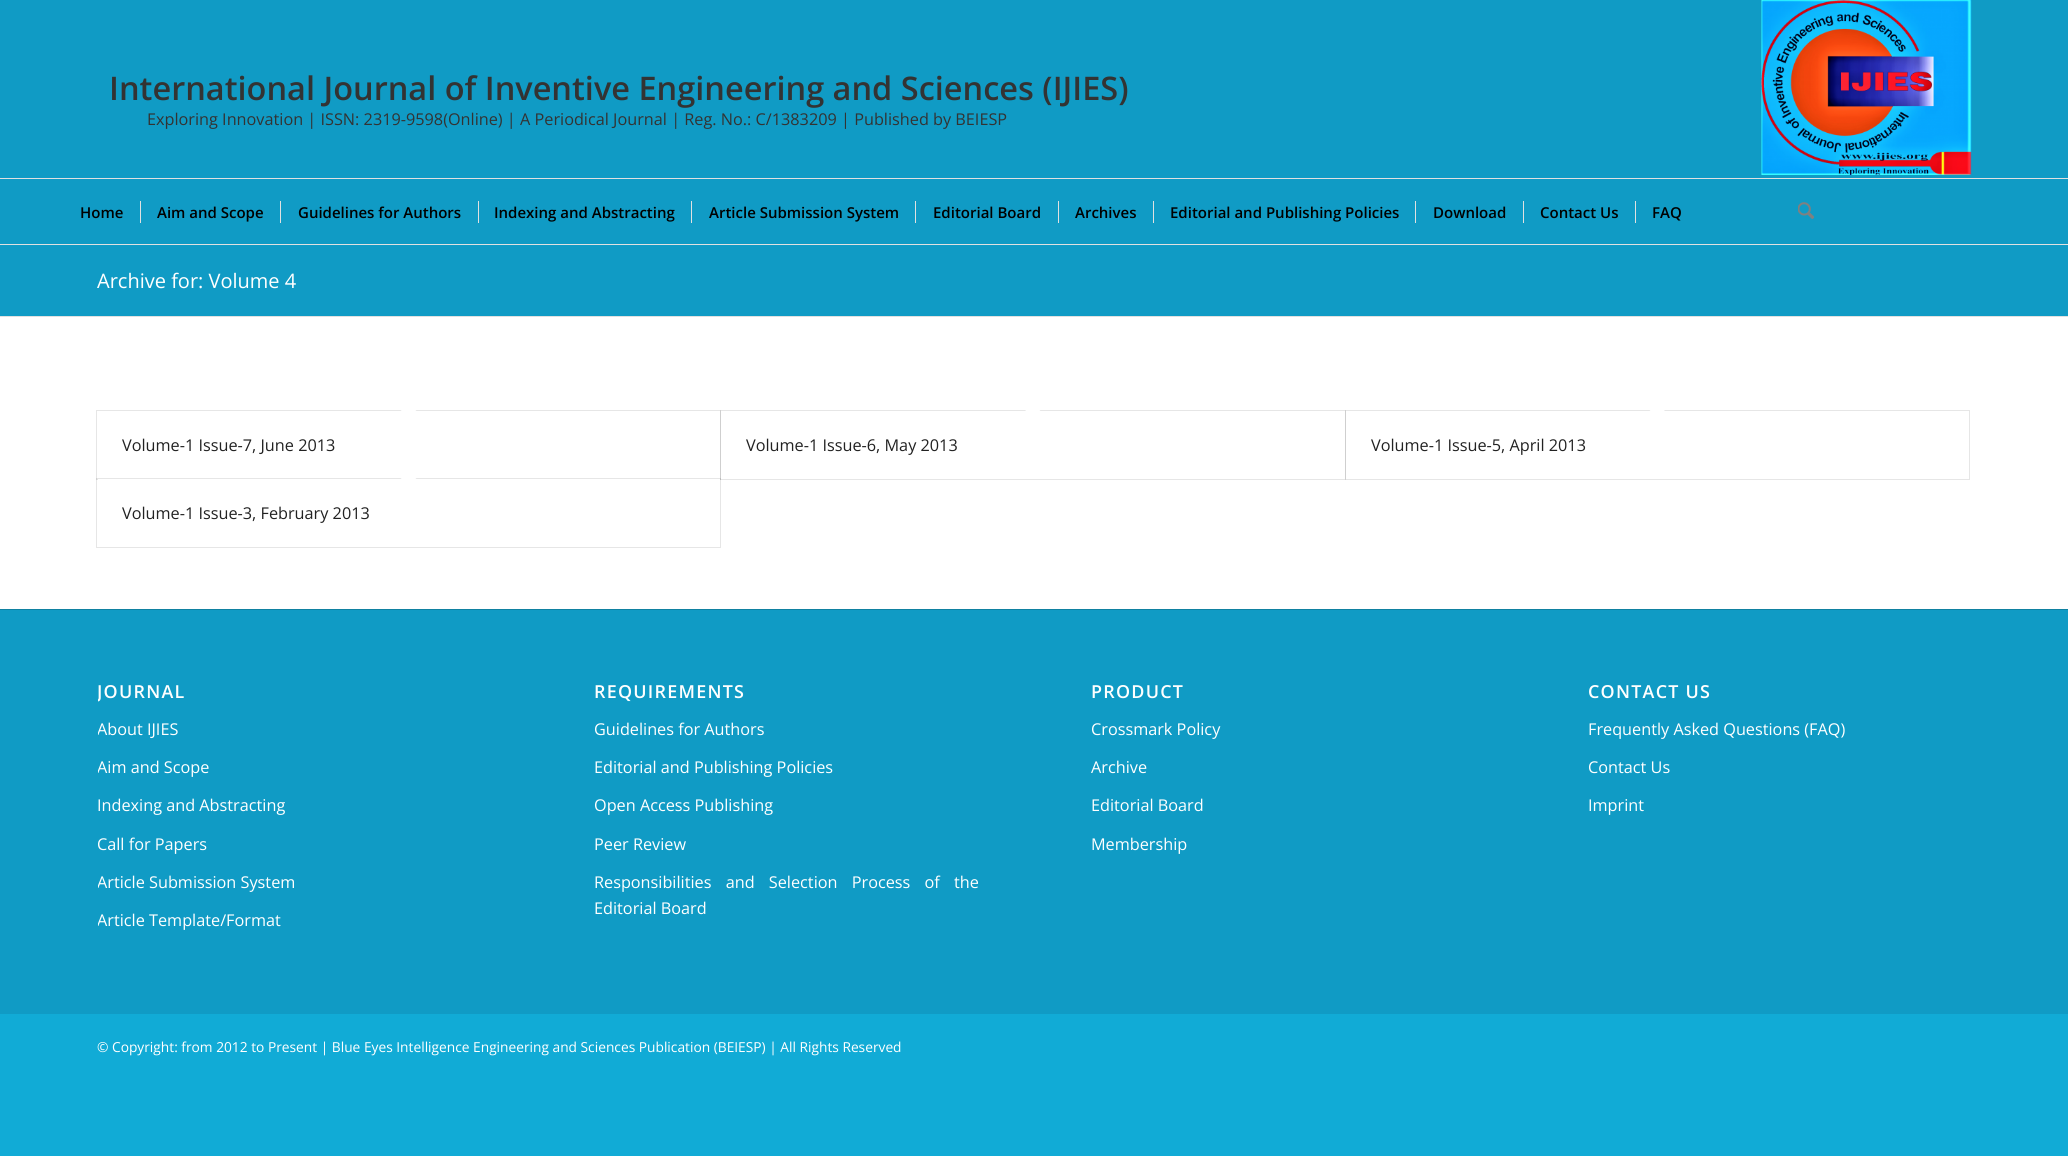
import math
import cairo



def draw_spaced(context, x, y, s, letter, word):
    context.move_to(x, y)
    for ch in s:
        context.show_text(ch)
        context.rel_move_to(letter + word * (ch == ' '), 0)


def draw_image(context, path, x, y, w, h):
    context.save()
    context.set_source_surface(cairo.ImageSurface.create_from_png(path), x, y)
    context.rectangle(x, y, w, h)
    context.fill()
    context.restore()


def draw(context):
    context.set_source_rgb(17 / 255, 171 / 255, 214 / 255)
    context.paint()
    context.set_source_rgb(16 / 255, 155 / 255, 197 / 255)
    context.rectangle(0, 0, 2068, 244)
    context.fill()
    context.set_source_rgb(225 / 255, 225 / 255, 225 / 255)
    context.rectangle(0, 244, 2068, 1)
    context.fill()
    draw_image(context, "images/1.png", 1761, 0, 211, 175)
    context.rectangle(0, 178, 2068, 1)
    context.fill()
    context.rectangle(140, 201, 1, 22)
    context.fill()
    context.rectangle(280, 201, 1, 22)
    context.fill()
    context.rectangle(478, 201, 1, 22)
    context.fill()
    context.rectangle(691, 201, 1, 22)
    context.fill()
    context.rectangle(915, 201, 1, 22)
    context.fill()
    context.rectangle(1058, 201, 1, 22)
    context.fill()
    context.rectangle(1153, 201, 1, 22)
    context.fill()
    context.rectangle(1415, 201, 1, 22)
    context.fill()
    context.rectangle(1523, 201, 1, 22)
    context.fill()
    context.rectangle(1635, 201, 1, 22)
    context.fill()
    draw_image(context, "images/2.png", 1798, 202, 16, 17)
    context.set_source_rgb(16 / 255, 155 / 255, 197 / 255)
    context.rectangle(0, 245, 2068, 769)
    context.fill()
    context.set_source_rgb(1, 1, 1)
    context.rectangle(0, 317, 2068, 292)
    context.fill()
    context.set_source_rgb(225 / 255, 225 / 255, 225 / 255)
    context.rectangle(0, 316, 2068, 1)
    context.fill()
    context.rectangle(96.5, 410.5, 624, 69)
    context.set_source_rgb(230 / 255, 230 / 255, 230 / 255)
    context.set_line_width(1)
    context.stroke()
    context.set_source_rgb(1, 1, 1)
    context.new_path()
    context.move_to(408.5, 403.5)
    context.line_to(417.5, 412)
    context.line_to(408.5, 421)
    context.line_to(399.5, 412)
    context.close_path()
    context.fill()
    context.rectangle(720.5, 410.5, 625, 69)
    context.set_source_rgba(0, 0, 0, 0.1)
    context.stroke()
    context.set_source_rgb(1, 1, 1)
    context.new_path()
    context.move_to(1033, 403.5)
    context.line_to(1041.5, 412)
    context.line_to(1033, 421)
    context.line_to(1024, 412)
    context.close_path()
    context.fill()
    context.rectangle(1345.5, 410.5, 624, 69)
    context.set_source_rgba(0, 0, 0, 0.1)
    context.stroke()
    context.set_source_rgb(1, 1, 1)
    context.new_path()
    context.move_to(1657, 403.5)
    context.line_to(1666, 412)
    context.line_to(1657, 421)
    context.line_to(1648.5, 412)
    context.close_path()
    context.fill()
    context.rectangle(96.5, 478.5, 624, 69)
    context.set_source_rgba(0, 0, 0, 0.1)
    context.stroke()
    context.set_source_rgb(1, 1, 1)
    context.rectangle(98, 479, 622, 1)
    context.fill()
    context.new_path()
    context.move_to(408.5, 471.5)
    context.line_to(417.5, 480)
    context.line_to(408.5, 489)
    context.line_to(399.5, 480)
    context.close_path()
    context.fill()
    context.set_source_rgb(15 / 255, 129 / 255, 161 / 255)
    context.rectangle(0, 609, 2068, 1)
    context.fill()
    context.select_font_face("Open Sans SemiBold")
    context.set_font_size(32.5)
    context.set_source_rgb(51 / 255, 51 / 255, 51 / 255)
    context.move_to(109, 100)
    context.show_text("International Journal of Inventive Engineering and Sciences (IJIES)")
    context.select_font_face("Open Sans")
    context.set_font_size(16.25)
    context.move_to(147, 125)
    context.show_text("Exploring Innovation | ISSN: 2319-9598(Online) | A Periodical Journal | Reg. No.: C/1383209 | Published by BEIESP")
    context.select_font_face("Open Sans SemiBold")
    context.set_font_size(15)
    context.set_source_rgb(0, 0, 0)
    context.move_to(80, 218)
    context.show_text("Home")
    context.move_to(157, 218)
    context.show_text("Aim and Scope")
    context.move_to(298, 218)
    context.show_text("Guidelines for Authors")
    context.move_to(494, 218)
    context.show_text("Indexing and Abstracting")
    context.move_to(709, 218)
    context.show_text("Article Submission System")
    context.move_to(933, 218)
    context.show_text("Editorial Board")
    context.move_to(1075, 218)
    context.show_text("Archives")
    context.move_to(1170, 218)
    context.show_text("Editorial and Publishing Policies")
    context.move_to(1433, 218)
    context.show_text("Download")
    context.move_to(1540, 218)
    context.show_text("Contact Us")
    context.move_to(1652, 218)
    context.show_text("FAQ")
    context.select_font_face("Open Sans")
    context.set_font_size(20)
    context.set_source_rgb(1, 1, 1)
    context.move_to(97, 288)
    context.show_text("Archive for: Volume 4")
    context.set_font_size(16.25)
    context.set_source_rgb(34 / 255, 34 / 255, 34 / 255)
    context.move_to(122, 451)
    context.show_text("Volume-1 Issue-7, June 2013")
    context.move_to(746, 451)
    context.show_text("Volume-1 Issue-6, May 2013")
    context.move_to(1371, 451)
    context.show_text("Volume-1 Issue-5, April 2013")
    context.move_to(122, 519)
    context.show_text("Volume-1 Issue-3, February 2013")
    context.save()
    context.rectangle(98, 666, 383, 274)
    context.clip()
    context.select_font_face("Open Sans SemiBold")
    context.set_font_size(17.9)
    context.set_source_rgb(1, 1, 1)
    draw_spaced(context, 97, 698, "JOURNAL", 1.25, 0)
    context.select_font_face("Open Sans")
    context.set_font_size(16.25)
    context.move_to(97, 735)
    context.show_text("About IJIES")
    context.move_to(97, 773)
    context.show_text("Aim and Scope")
    context.restore()
    context.set_source_rgb(1, 1, 1)
    context.move_to(97, 811)
    context.show_text("Indexing and Abstracting")
    context.move_to(97, 850)
    context.show_text("Call for Papers")
    context.save()
    context.rectangle(98, 666, 383, 274)
    context.clip()
    context.move_to(97, 888)
    context.show_text("Article Submission System")
    context.move_to(97, 926)
    context.show_text("Article Template/Format")
    context.restore()
    context.select_font_face("Open Sans SemiBold")
    context.set_font_size(17.9)
    draw_spaced(context, 594, 698, "REQUIREMENTS", 1.25, 0)
    context.select_font_face("Open Sans")
    context.set_font_size(16.25)
    context.move_to(594, 735)
    context.show_text("Guidelines for Authors")
    context.move_to(594, 773)
    context.show_text("Editorial and Publishing Policies")
    context.move_to(594, 811)
    context.show_text("Open Access Publishing")
    context.move_to(594, 850)
    context.show_text("Peer Review")
    draw_spaced(context, 594, 888, "Responsibilities and Selection Process of the", 0, 10)
    context.move_to(594, 914)
    context.show_text("Editorial Board")
    context.select_font_face("Open Sans SemiBold")
    context.set_font_size(17.9)
    draw_spaced(context, 1091, 698, "PRODUCT", 1.25, 0)
    context.select_font_face("Open Sans")
    context.set_font_size(16.25)
    context.move_to(1091, 735)
    context.show_text("Crossmark Policy")
    context.move_to(1091, 773)
    context.show_text("Archive")
    context.move_to(1091, 811)
    context.show_text("Editorial Board")
    context.move_to(1091, 850)
    context.show_text("Membership")
    context.select_font_face("Open Sans SemiBold")
    context.set_font_size(17.9)
    draw_spaced(context, 1588, 698, "CONTACT US", 1.25, 0)
    context.select_font_face("Open Sans")
    context.set_font_size(16.25)
    context.move_to(1588, 735)
    context.show_text("Frequently Asked Questions (FAQ)")
    context.move_to(1588, 773)
    context.show_text("Contact Us")
    context.move_to(1588, 811)
    context.show_text("Imprint")
    context.set_font_size(13.75)
    context.move_to(97, 1052)
    context.show_text("© Copyright: from 2012 to Present | Blue Eyes Intelligence Engineering and Sciences Publication (BEIESP) | All Rights Reserved")


surface = cairo.ImageSurface(cairo.Format.RGB24, 2068, 1156)
context = cairo.Context(surface)
options = cairo.FontOptions()
options.set_hint_metrics(cairo.HintMetrics.OFF)
options.set_hint_style(cairo.HintStyle.NONE)
context.set_font_options(options)
context.set_miter_limit(4)
draw(context)
surface.write_to_png("out.png")
